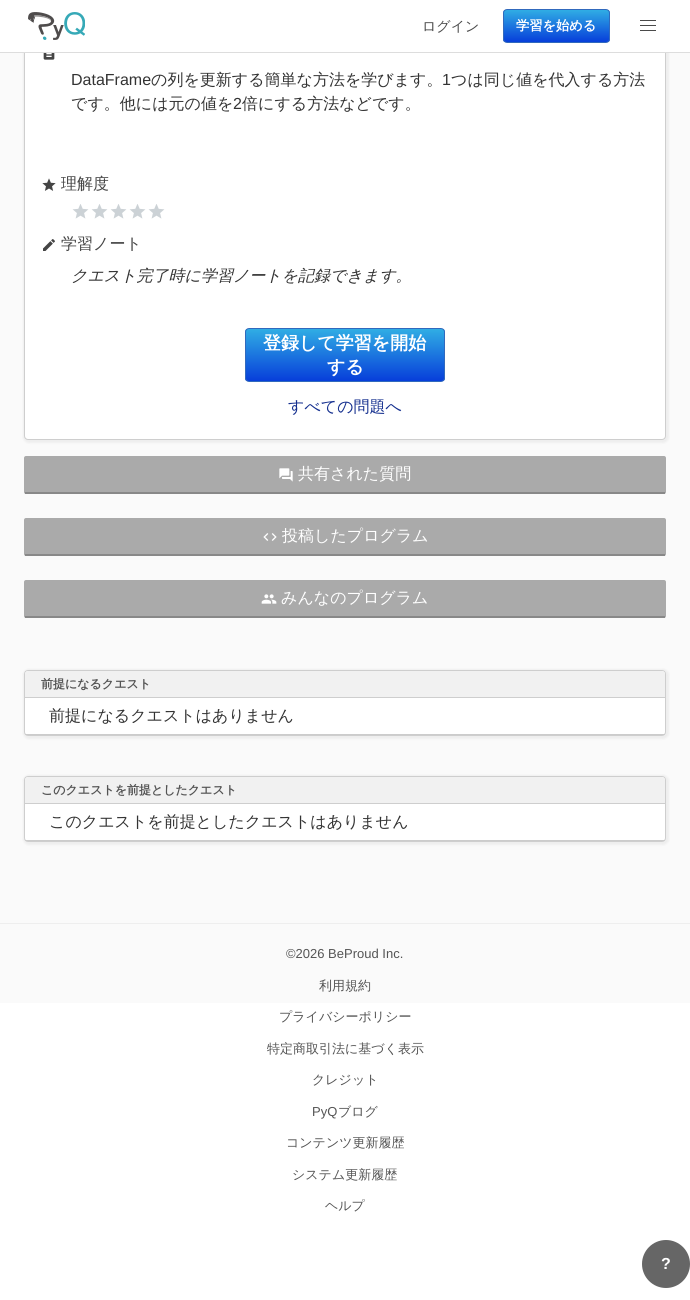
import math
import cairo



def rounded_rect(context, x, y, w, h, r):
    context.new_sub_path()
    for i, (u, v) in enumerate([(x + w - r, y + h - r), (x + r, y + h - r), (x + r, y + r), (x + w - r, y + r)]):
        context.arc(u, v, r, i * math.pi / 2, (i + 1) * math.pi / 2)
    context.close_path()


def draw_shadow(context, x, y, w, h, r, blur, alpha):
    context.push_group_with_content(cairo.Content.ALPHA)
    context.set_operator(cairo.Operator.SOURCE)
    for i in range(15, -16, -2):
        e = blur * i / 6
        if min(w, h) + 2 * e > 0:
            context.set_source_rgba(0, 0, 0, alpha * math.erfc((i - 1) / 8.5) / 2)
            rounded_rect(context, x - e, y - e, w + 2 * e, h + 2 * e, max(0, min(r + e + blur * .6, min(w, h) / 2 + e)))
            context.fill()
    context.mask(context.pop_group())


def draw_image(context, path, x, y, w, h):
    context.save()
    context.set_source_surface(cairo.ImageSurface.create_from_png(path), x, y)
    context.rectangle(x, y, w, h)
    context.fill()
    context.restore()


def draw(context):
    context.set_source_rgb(1, 1, 1)
    context.paint()
    context.set_source_rgb(250 / 255, 250 / 255, 250 / 255)
    context.rectangle(0, 53, 690, 950)
    context.fill()
    context.set_source_rgb(0, 0, 0)
    draw_shadow(context, 23, -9, 646, 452, 6, 1, 0.05)
    context.set_source_rgb(1, 1, 1)
    rounded_rect(context, 24.5, -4.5, 641, 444, 3.5)
    context.fill_preserve()
    context.set_source_rgb(206 / 255, 206 / 255, 206 / 255)
    context.set_line_width(1)
    context.stroke()
    context.set_source_rgb(1, 1, 1)
    context.rectangle(22, 0, 648, 52)
    context.fill()
    context.set_source_rgb(221 / 255, 221 / 255, 221 / 255)
    context.rectangle(0, 52, 690, 1)
    context.fill()
    draw_image(context, "images/1.png", 28, 12, 57, 28)
    context.save()
    rounded_rect(context, 503, 9, 107, 34, 4)
    context.clip()
    gradient = cairo.LinearGradient(557, 10, 557, 42)
    gradient.add_color_stop_rgba(0, 48 / 255, 173 / 255, 228 / 255, 1)
    gradient.add_color_stop_rgba(1, 7 / 255, 62 / 255, 218 / 255, 1)
    context.set_source(gradient)
    context.rectangle(503, 10, 107, 32)
    context.fill()
    context.restore()
    rounded_rect(context, 503.5, 9.5, 106, 33, 3.5)
    context.set_source_rgb(49 / 255, 105 / 255, 189 / 255)
    context.stroke()
    context.set_source_rgb(74 / 255, 74 / 255, 74 / 255)
    context.rectangle(640, 20, 16, 1)
    context.fill()
    context.rectangle(640, 25, 16, 1)
    context.fill()
    context.rectangle(640, 30, 16, 1)
    context.fill()
    draw_image(context, "images/2.png", 43, 53, 12, 7)
    draw_image(context, "images/3.png", 42, 178, 14, 13)
    draw_image(context, "images/4.png", 72, 204, 17, 15)
    draw_image(context, "images/4.png", 91, 204, 17, 15)
    draw_image(context, "images/4.png", 110, 204, 17, 15)
    draw_image(context, "images/4.png", 129, 204, 17, 15)
    draw_image(context, "images/4.png", 148, 204, 17, 15)
    draw_image(context, "images/5.png", 43, 239, 12, 12)
    context.save()
    rounded_rect(context, 245, 328, 200, 54, 4)
    context.clip()
    gradient = cairo.LinearGradient(345, 329, 345, 381)
    gradient.add_color_stop_rgba(0, 48 / 255, 173 / 255, 228 / 255, 1)
    gradient.add_color_stop_rgba(1, 7 / 255, 62 / 255, 218 / 255, 1)
    context.set_source(gradient)
    context.rectangle(245, 329, 200, 52)
    context.fill()
    context.restore()
    rounded_rect(context, 245.5, 328.5, 199, 53, 3.5)
    context.set_source_rgb(49 / 255, 105 / 255, 189 / 255)
    context.stroke()
    context.set_source_rgb(170 / 255, 170 / 255, 170 / 255)
    rounded_rect(context, 24, 456, 642, 38, 2)
    context.fill()
    context.set_source_rgb(136 / 255, 136 / 255, 136 / 255)
    context.rectangle(25, 492, 640, 2)
    context.fill()
    draw_image(context, "images/6.png", 279, 468, 14, 14)
    context.set_source_rgb(170 / 255, 170 / 255, 170 / 255)
    rounded_rect(context, 24, 518, 642, 38, 2)
    context.fill()
    context.set_source_rgb(136 / 255, 136 / 255, 136 / 255)
    context.rectangle(25, 554, 640, 2)
    context.fill()
    draw_image(context, "images/7.png", 263, 533, 14, 8)
    context.set_source_rgb(170 / 255, 170 / 255, 170 / 255)
    rounded_rect(context, 24, 580, 642, 38, 2)
    context.fill()
    context.set_source_rgb(136 / 255, 136 / 255, 136 / 255)
    context.rectangle(25, 616, 640, 2)
    context.fill()
    draw_image(context, "images/8.png", 261, 594, 16, 10)
    context.set_source_rgb(0, 0, 0)
    draw_shadow(context, 23, 669, 646, 70, 6, 1, 0.05)
    context.set_source_rgb(1, 1, 1)
    rounded_rect(context, 24.5, 670.5, 641, 65, 3.5)
    context.fill_preserve()
    context.set_source_rgb(206 / 255, 206 / 255, 206 / 255)
    context.stroke()
    context.set_source_rgb(241 / 255, 241 / 255, 241 / 255)
    context.new_path()
    context.move_to(28, 671)
    context.line_to(662, 671)
    context.curve_to(663.5, 671, 665, 672.5, 665, 674)
    context.line_to(665, 698)
    context.line_to(25, 698)
    context.line_to(25, 674)
    context.curve_to(25, 672.5, 26.5, 671, 28, 671)
    context.close_path()
    context.fill()
    context.set_source_rgb(206 / 255, 206 / 255, 206 / 255)
    context.rectangle(25, 697, 640, 1)
    context.fill()
    context.set_source_rgb(204 / 255, 204 / 255, 204 / 255)
    context.rectangle(25, 734, 640, 1)
    context.fill()
    context.set_source_rgb(0, 0, 0)
    draw_shadow(context, 23, 775, 646, 70, 6, 1, 0.05)
    context.set_source_rgb(1, 1, 1)
    rounded_rect(context, 24.5, 776.5, 641, 65, 3.5)
    context.fill_preserve()
    context.set_source_rgb(206 / 255, 206 / 255, 206 / 255)
    context.stroke()
    context.set_source_rgb(241 / 255, 241 / 255, 241 / 255)
    context.new_path()
    context.move_to(28, 777)
    context.line_to(662, 777)
    context.curve_to(663.5, 777, 665, 778.5, 665, 780)
    context.line_to(665, 804)
    context.line_to(25, 804)
    context.line_to(25, 780)
    context.curve_to(25, 778.5, 26.5, 777, 28, 777)
    context.close_path()
    context.fill()
    context.set_source_rgb(206 / 255, 206 / 255, 206 / 255)
    context.rectangle(25, 803, 640, 1)
    context.fill()
    context.set_source_rgb(204 / 255, 204 / 255, 204 / 255)
    context.rectangle(25, 840, 640, 1)
    context.fill()
    context.set_source_rgb(238 / 255, 238 / 255, 238 / 255)
    context.rectangle(0, 923, 690, 1)
    context.fill()
    context.set_source_rgb(102 / 255, 102 / 255, 102 / 255)
    context.arc(666, 1264, 24, 0, 2 * math.pi)
    context.fill()
    context.select_font_face("WenQuanYi Zen Hei Medium")
    context.set_font_size(14)
    context.set_source_rgb(74 / 255, 74 / 255, 74 / 255)
    context.move_to(422, 31)
    context.show_text("ログイン")
    context.select_font_face("WenQuanYi Zen Hei", cairo.FontSlant.NORMAL, cairo.FontWeight.BOLD)
    context.set_font_size(13.25)
    context.set_source_rgb(1, 1, 1)
    context.move_to(516, 30)
    context.show_text("学習を始める")
    context.select_font_face("Liberation Sans")
    context.set_font_size(16)
    context.set_source_rgb(51 / 255, 51 / 255, 51 / 255)
    context.move_to(71, 85)
    context.show_text("DataFrame")
    context.select_font_face("WenQuanYi Zen Hei Medium")
    context.move_to(151, 85)
    context.show_text("の列を更新する簡単な方法を学びます。")
    context.select_font_face("Liberation Sans")
    context.move_to(442, 85)
    context.show_text("1")
    context.select_font_face("WenQuanYi Zen Hei Medium")
    context.move_to(451, 85)
    context.show_text("つは同じ値を代入する方法")
    context.move_to(71, 109)
    context.show_text("です。他には元の値を")
    context.select_font_face("Liberation Sans")
    context.move_to(233, 109)
    context.show_text("2")
    context.select_font_face("WenQuanYi Zen Hei Medium")
    context.move_to(242, 109)
    context.show_text("倍にする方法などです。")
    context.set_source_rgb(68 / 255, 68 / 255, 68 / 255)
    context.move_to(61, 189)
    context.show_text("理解度")
    context.move_to(61, 249)
    context.show_text("学習ノート")
    context.select_font_face("WenQuanYi Zen Hei Medium", cairo.FontSlant.ITALIC)
    context.set_source_rgb(51 / 255, 51 / 255, 51 / 255)
    context.move_to(71, 281)
    context.show_text("クエスト完了時に学習ノートを記録できます。")
    context.select_font_face("WenQuanYi Zen Hei", cairo.FontSlant.NORMAL, cairo.FontWeight.BOLD)
    context.set_font_size(18)
    context.set_source_rgb(1, 1, 1)
    context.move_to(263, 349)
    context.show_text("登録して学習を開始")
    context.move_to(327, 373)
    context.show_text("する")
    context.select_font_face("WenQuanYi Zen Hei Medium")
    context.set_font_size(16)
    context.set_source_rgb(19 / 255, 46 / 255, 142 / 255)
    context.move_to(288, 412)
    context.show_text("すべての問題へ")
    context.set_source_rgb(1, 1, 1)
    context.move_to(298, 479)
    context.show_text("共有された質問")
    context.move_to(282, 541)
    context.show_text("投稿したプログラム")
    context.move_to(281, 603)
    context.show_text("みんなのプログラム")
    context.select_font_face("WenQuanYi Zen Hei", cairo.FontSlant.NORMAL, cairo.FontWeight.BOLD)
    context.set_font_size(12)
    context.set_source_rgb(84 / 255, 84 / 255, 84 / 255)
    context.move_to(41, 688)
    context.show_text("前提になるクエスト")
    context.select_font_face("WenQuanYi Zen Hei Medium")
    context.set_font_size(16)
    context.set_source_rgb(51 / 255, 51 / 255, 51 / 255)
    context.move_to(49, 721)
    context.show_text("前提になるクエストはありません")
    context.select_font_face("WenQuanYi Zen Hei", cairo.FontSlant.NORMAL, cairo.FontWeight.BOLD)
    context.set_font_size(12)
    context.set_source_rgb(84 / 255, 84 / 255, 84 / 255)
    context.move_to(41, 794)
    context.show_text("このクエストを前提としたクエスト")
    context.select_font_face("WenQuanYi Zen Hei Medium")
    context.set_font_size(16)
    context.set_source_rgb(51 / 255, 51 / 255, 51 / 255)
    context.move_to(49, 827)
    context.show_text("このクエストを前提としたクエストはありません")
    context.select_font_face("Liberation Sans")
    context.set_font_size(13)
    context.set_source_rgb(84 / 255, 84 / 255, 84 / 255)
    context.move_to(286, 958)
    context.show_text("©2026 BeProud Inc.")
    context.select_font_face("WenQuanYi Zen Hei Medium")
    context.move_to(319, 990)
    context.show_text("利用規約")
    context.move_to(279, 1021)
    context.show_text("プライバシーポリシー")
    context.move_to(267, 1053)
    context.show_text("特定商取引法に基づく表示")
    context.move_to(312, 1084)
    context.show_text("クレジット")
    context.select_font_face("Liberation Sans")
    context.move_to(312, 1116)
    context.show_text("PyQ")
    context.select_font_face("WenQuanYi Zen Hei Medium")
    context.move_to(338, 1116)
    context.show_text("ブログ")
    context.move_to(286, 1147)
    context.show_text("コンテンツ更新履歴")
    context.move_to(292, 1179)
    context.show_text("システム更新履歴")
    context.move_to(325, 1210)
    context.show_text("ヘルプ")
    context.select_font_face("Liberation Sans", cairo.FontSlant.NORMAL, cairo.FontWeight.BOLD)
    context.set_font_size(16)
    context.set_source_rgb(1, 1, 1)
    context.move_to(661, 1269)
    context.show_text("?")


surface = cairo.ImageSurface(cairo.Format.RGB24, 690, 1300)
context = cairo.Context(surface)
options = cairo.FontOptions()
options.set_hint_metrics(cairo.HintMetrics.OFF)
options.set_hint_style(cairo.HintStyle.NONE)
context.set_font_options(options)
context.set_miter_limit(4)
draw(context)
surface.write_to_png("out.png")
